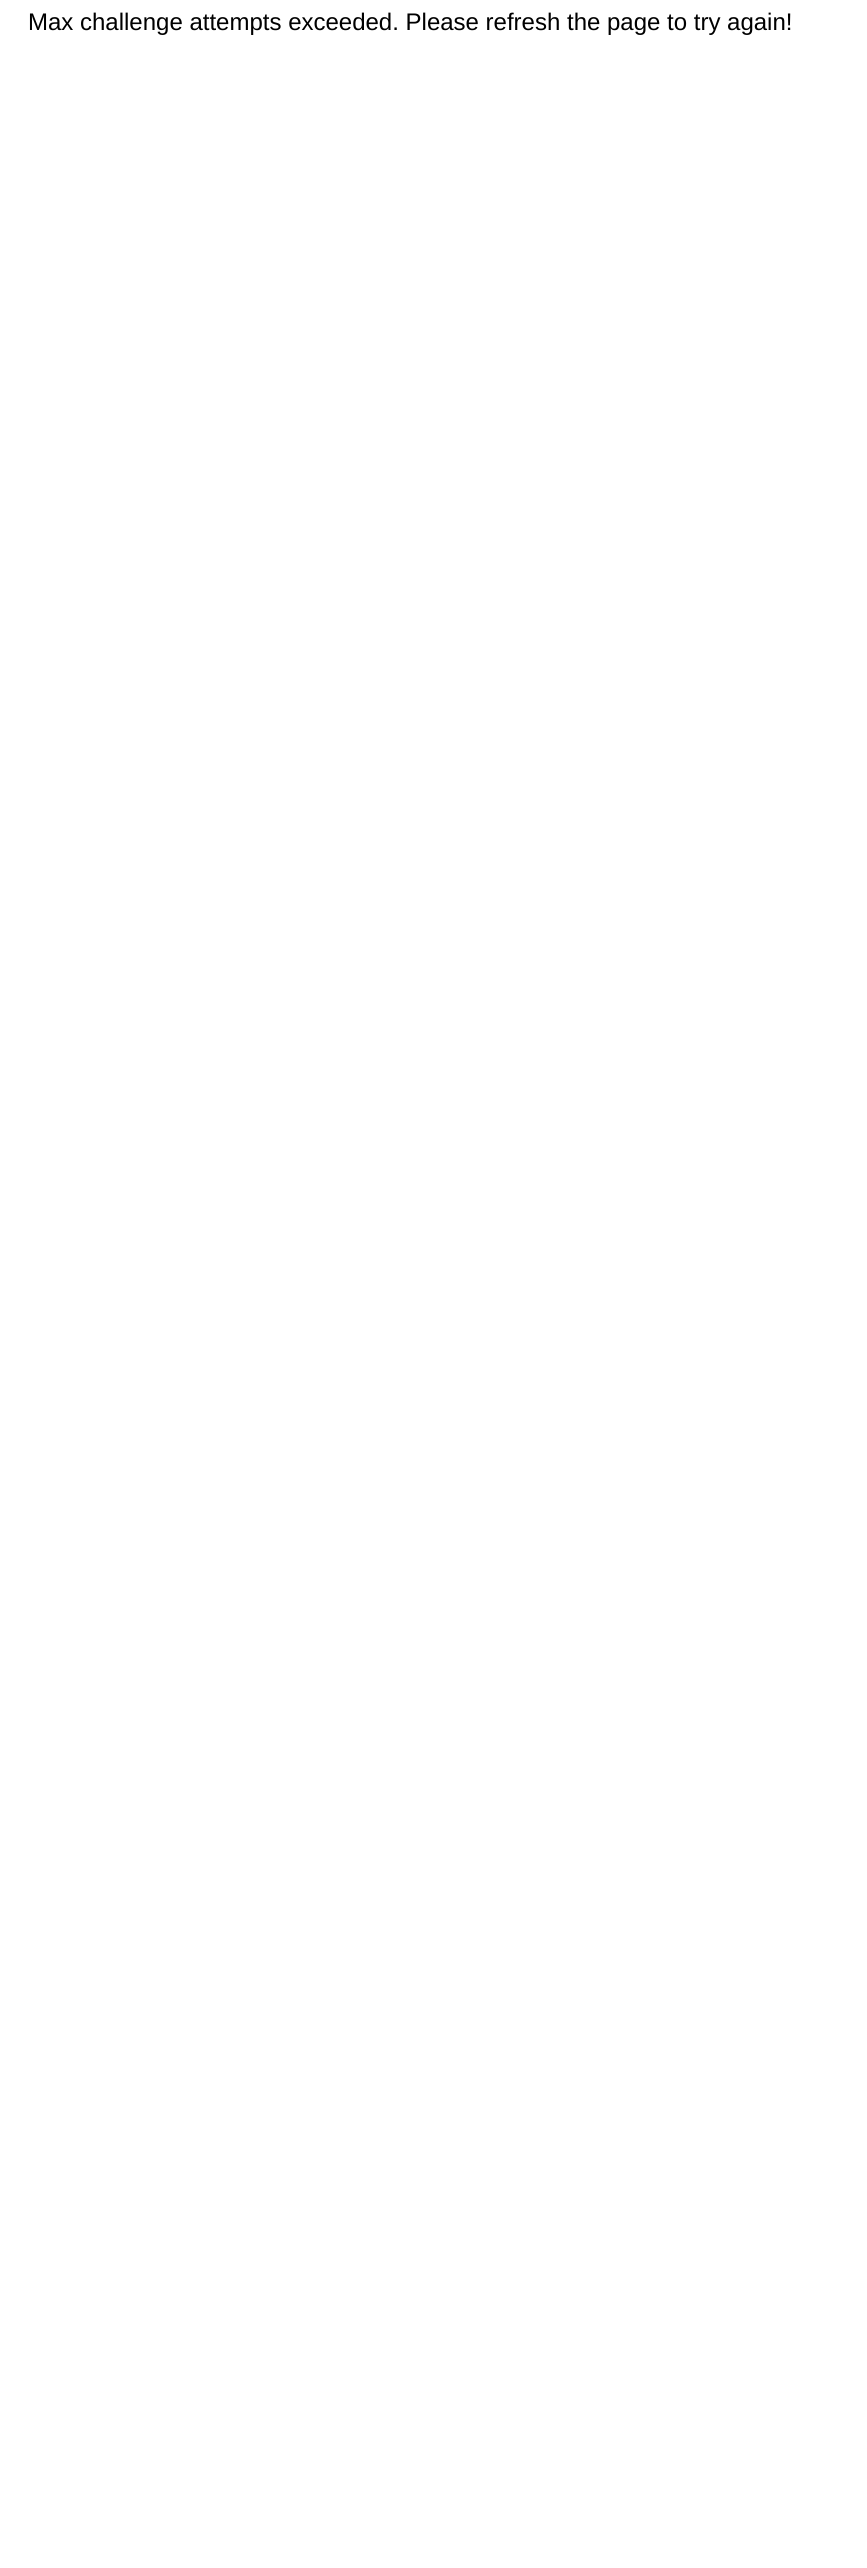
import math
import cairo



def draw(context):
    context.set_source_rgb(1, 1, 1)
    context.paint()
    context.select_font_face("Liberation Sans")
    context.set_font_size(24)
    context.set_source_rgb(0, 0, 0)
    context.move_to(28, 30)
    context.show_text("Max challenge attempts exceeded. Please refresh the page to try again!")


surface = cairo.ImageSurface(cairo.Format.RGB24, 867, 2568)
context = cairo.Context(surface)
options = cairo.FontOptions()
options.set_hint_metrics(cairo.HintMetrics.OFF)
options.set_hint_style(cairo.HintStyle.NONE)
context.set_font_options(options)
context.set_miter_limit(4)
draw(context)
surface.write_to_png("out.png")
